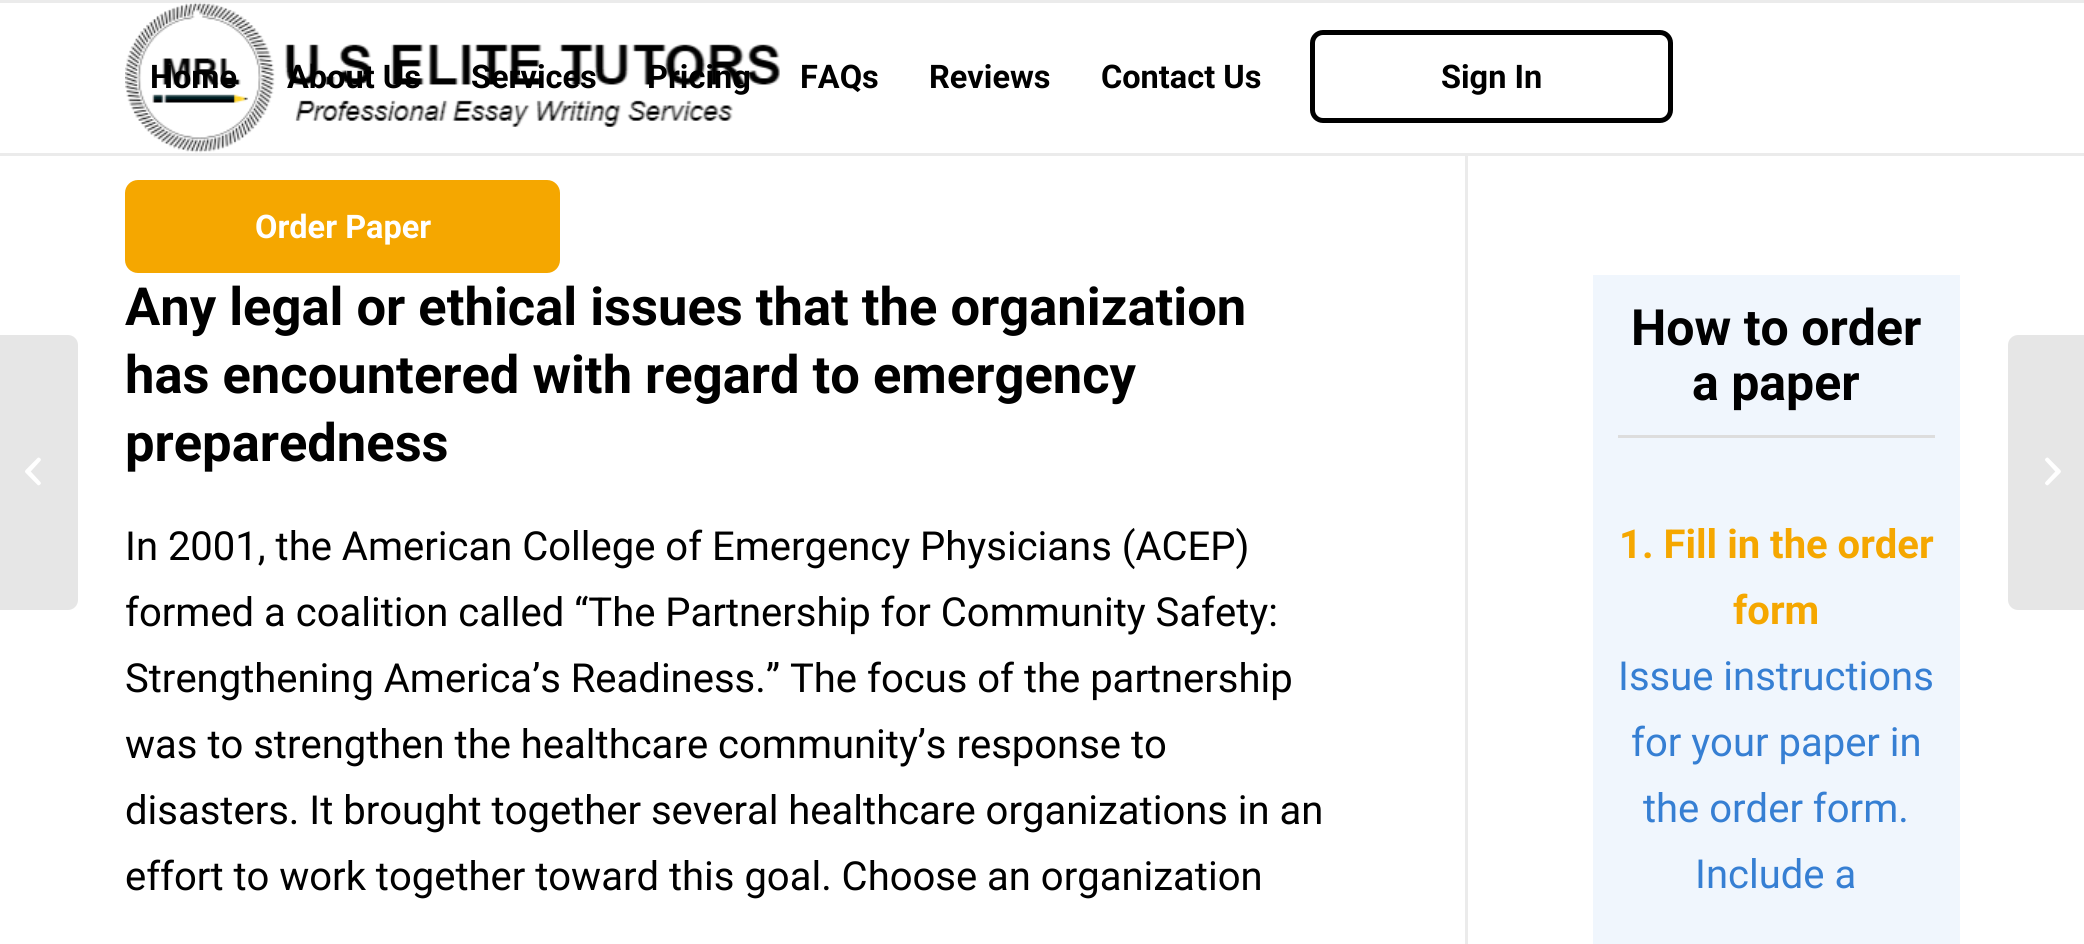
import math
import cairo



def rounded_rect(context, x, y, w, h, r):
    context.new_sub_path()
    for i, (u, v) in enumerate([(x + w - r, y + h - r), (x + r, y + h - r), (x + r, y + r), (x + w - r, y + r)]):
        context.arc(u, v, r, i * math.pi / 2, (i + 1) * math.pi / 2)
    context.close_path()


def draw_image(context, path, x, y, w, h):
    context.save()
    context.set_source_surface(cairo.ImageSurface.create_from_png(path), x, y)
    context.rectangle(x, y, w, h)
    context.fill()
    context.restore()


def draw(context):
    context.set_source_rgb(1, 1, 1)
    context.paint()
    context.set_source_rgb(235 / 255, 235 / 255, 235 / 255)
    context.rectangle(0, 0, 2084, 3)
    context.fill()
    context.rectangle(1465, 150, 3, 794)
    context.fill()
    context.rectangle(0, 153, 2084, 3)
    context.fill()
    draw_image(context, "images/1.png", 125, 2, 655, 151)
    rounded_rect(context, 1312.5, 32.5, 358, 88, 10.5)
    context.set_source_rgb(0, 0, 0)
    context.set_line_width(5)
    context.stroke()
    context.set_source_rgb(245 / 255, 167 / 255, 0)
    rounded_rect(context, 127.5, 182.5, 430, 88, 10.5)
    context.fill_preserve()
    context.stroke()
    context.set_source_rgb(1, 1, 1)
    context.rectangle(1465, 150, 3, 3)
    context.fill()
    context.set_source_rgb(230 / 255, 230 / 255, 230 / 255)
    context.new_path()
    context.move_to(0, 335)
    context.line_to(68, 335)
    context.curve_to(73.5, 335, 78, 339.5, 78, 345)
    context.line_to(78, 600)
    context.curve_to(78, 605.5, 73.5, 610, 68, 610)
    context.line_to(0, 610)
    context.close_path()
    context.fill()
    draw_image(context, "images/2.png", 25, 457, 16, 29)
    context.set_source_rgb(240 / 255, 246 / 255, 253 / 255)
    context.rectangle(1593, 275, 367, 669)
    context.fill()
    context.set_source_rgb(221 / 255, 221 / 255, 221 / 255)
    context.rectangle(1618, 435, 317, 3)
    context.fill()
    context.set_source_rgb(230 / 255, 230 / 255, 230 / 255)
    context.new_path()
    context.move_to(2018, 335)
    context.line_to(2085, 335)
    context.line_to(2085, 610)
    context.line_to(2018, 610)
    context.curve_to(2012.5, 610, 2008, 605.5, 2008, 600)
    context.line_to(2008, 345)
    context.curve_to(2008, 339.5, 2012.5, 335, 2018, 335)
    context.close_path()
    context.fill()
    draw_image(context, "images/3.png", 2045, 457, 16, 29)
    context.select_font_face("Roboto", cairo.FontSlant.NORMAL, cairo.FontWeight.BOLD)
    context.set_font_size(32.5)
    context.set_source_rgb(0, 0, 0)
    context.move_to(150, 88)
    context.show_text("Home")
    context.move_to(287, 88)
    context.show_text("About Us")
    context.move_to(471, 88)
    context.show_text("Services")
    context.move_to(647, 88)
    context.show_text("Pricing")
    context.move_to(800, 88)
    context.show_text("FAQs")
    context.move_to(929, 88)
    context.show_text("Reviews")
    context.move_to(1101, 88)
    context.show_text("Contact Us")
    context.move_to(1441, 88)
    context.show_text("Sign In")
    context.set_source_rgb(1, 1, 1)
    context.move_to(255, 238)
    context.show_text("Order Paper")
    context.set_font_size(52.5)
    context.set_source_rgb(0, 0, 0)
    context.move_to(125, 325)
    context.show_text("Any legal or ethical issues that the organization")
    context.move_to(125, 393)
    context.show_text("has encountered with regard to emergency")
    context.move_to(125, 461)
    context.show_text("preparedness")
    context.select_font_face("Roboto")
    context.set_font_size(40)
    context.move_to(125, 560)
    context.show_text("In 2001, the American College of Emergency Physicians (ACEP)")
    context.move_to(125, 626)
    context.show_text("formed a coalition called “The Partnership for Community Safety:")
    context.move_to(125, 692)
    context.show_text("Strengthening America’s Readiness.” The focus of the partnership")
    context.move_to(125, 758)
    context.show_text("was to strengthen the healthcare community’s response to")
    context.move_to(125, 824)
    context.show_text("disasters. It brought together several healthcare organizations in an")
    context.move_to(125, 890)
    context.show_text("effort to work together toward this goal. Choose an organization")
    context.select_font_face("Roboto", cairo.FontSlant.NORMAL, cairo.FontWeight.BOLD)
    context.set_font_size(50)
    context.move_to(1631, 345)
    context.show_text("How to order")
    context.move_to(1692, 400)
    context.show_text("a paper")
    context.set_font_size(40)
    context.set_source_rgb(245 / 255, 167 / 255, 0)
    context.move_to(1619, 558)
    context.show_text("1. Fill in the order")
    context.move_to(1733, 624)
    context.show_text("form")
    context.select_font_face("Roboto")
    context.set_source_rgb(54 / 255, 127 / 255, 211 / 255)
    context.move_to(1618, 690)
    context.show_text("Issue instructions")
    context.move_to(1631, 756)
    context.show_text("for your paper in")
    context.move_to(1643, 822)
    context.show_text("the order form.")
    context.move_to(1695, 888)
    context.show_text("Include a")


surface = cairo.ImageSurface(cairo.Format.RGB24, 2084, 944)
context = cairo.Context(surface)
options = cairo.FontOptions()
options.set_hint_metrics(cairo.HintMetrics.OFF)
options.set_hint_style(cairo.HintStyle.NONE)
context.set_font_options(options)
context.set_miter_limit(4)
draw(context)
surface.write_to_png("out.png")
